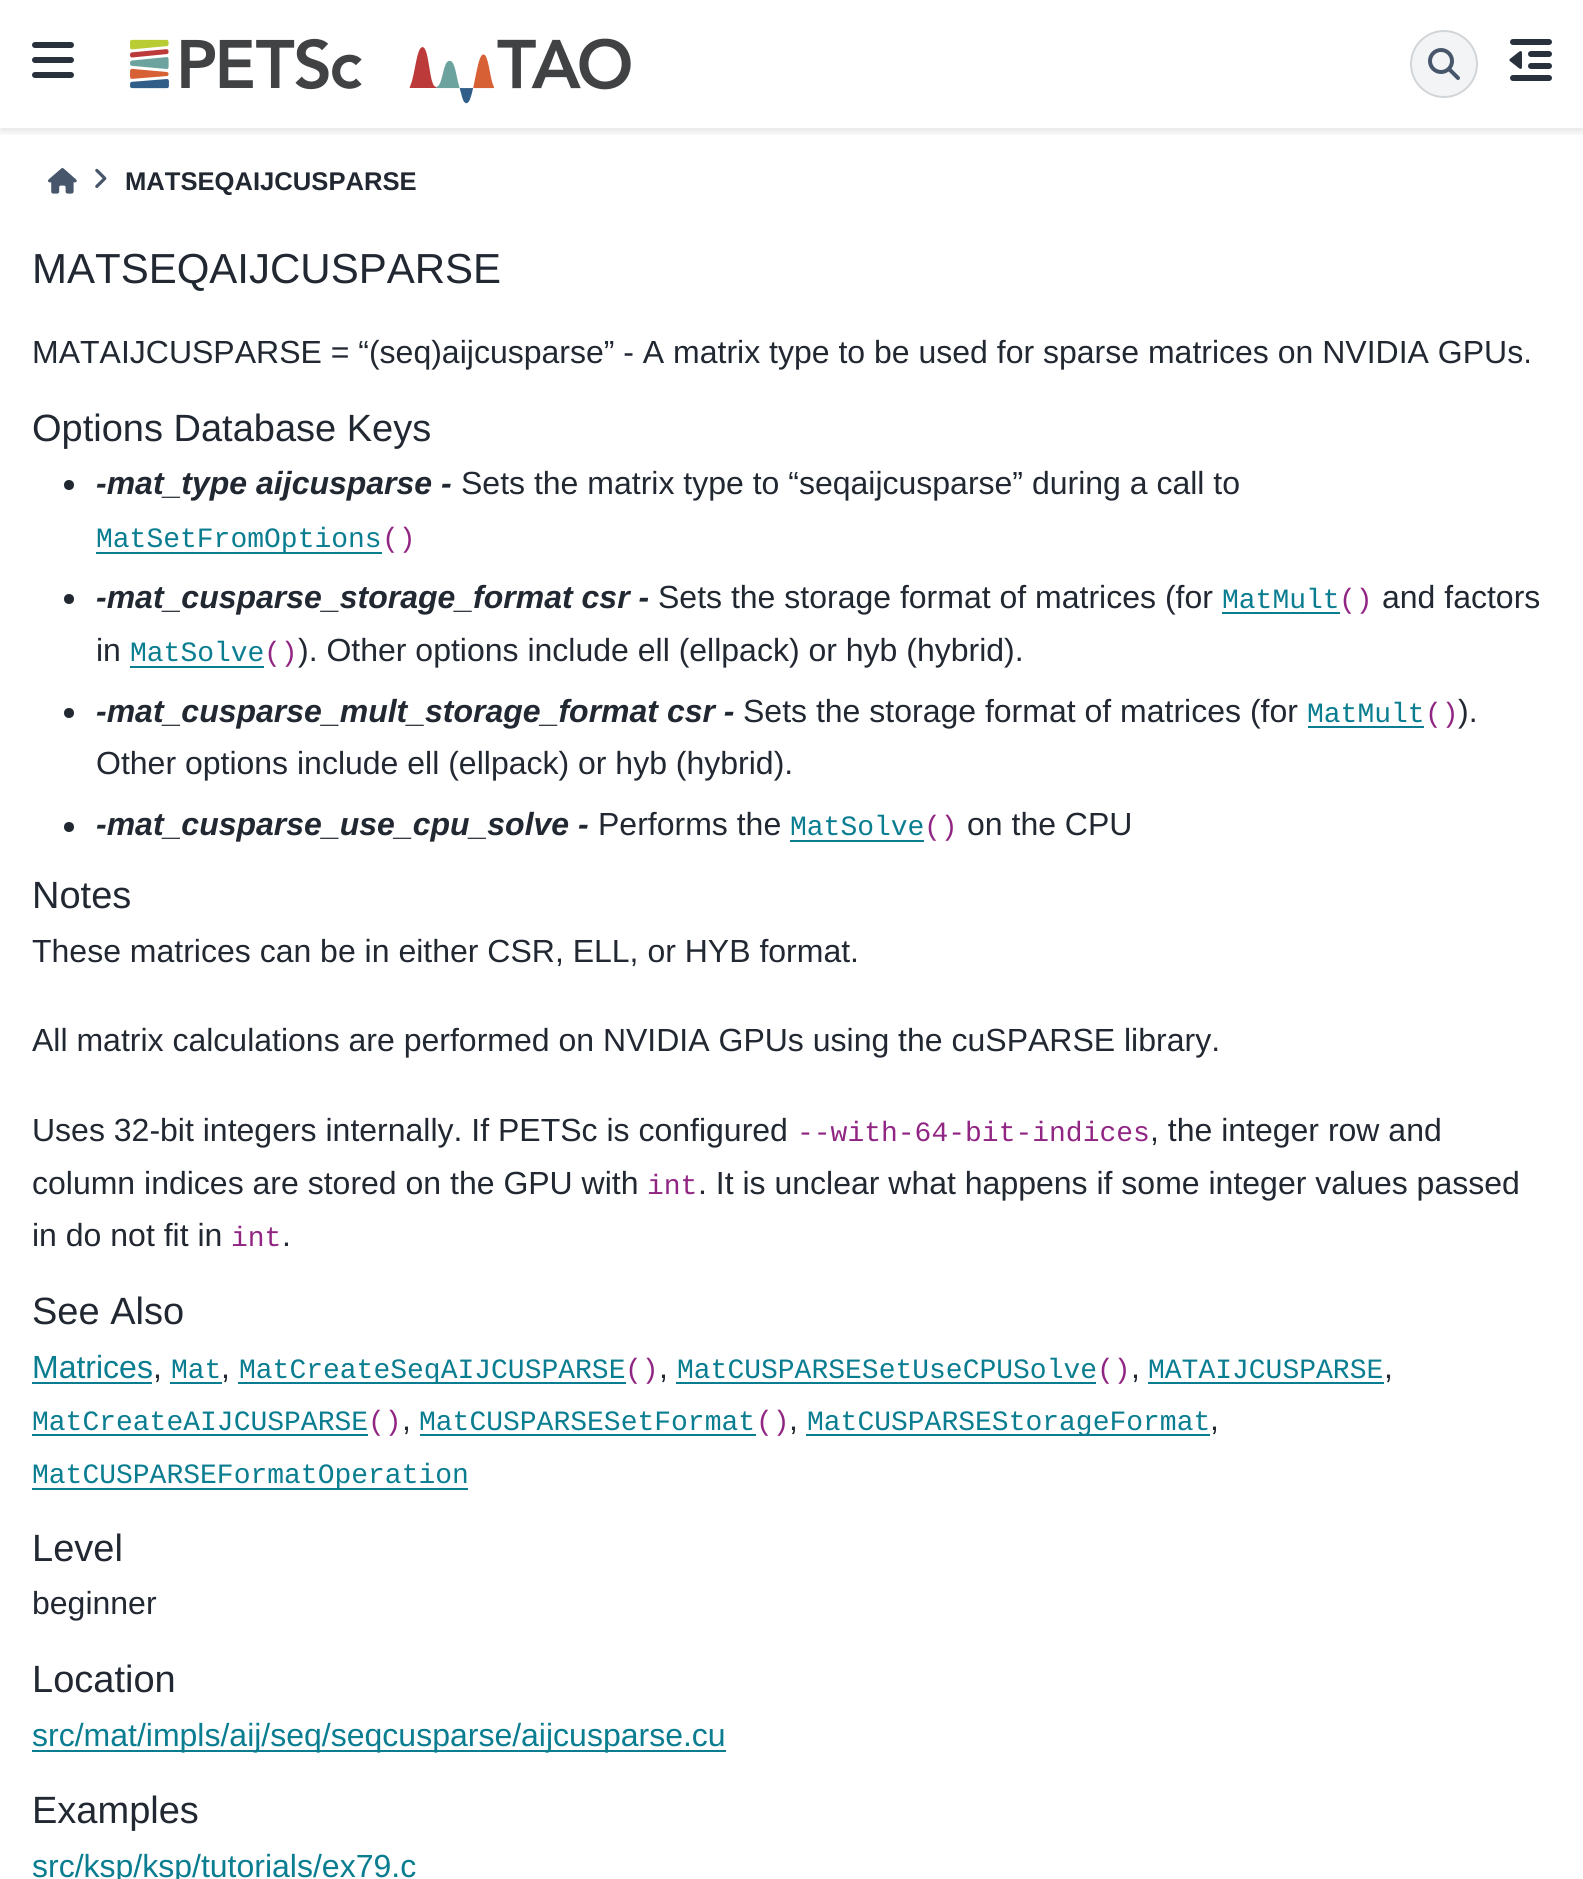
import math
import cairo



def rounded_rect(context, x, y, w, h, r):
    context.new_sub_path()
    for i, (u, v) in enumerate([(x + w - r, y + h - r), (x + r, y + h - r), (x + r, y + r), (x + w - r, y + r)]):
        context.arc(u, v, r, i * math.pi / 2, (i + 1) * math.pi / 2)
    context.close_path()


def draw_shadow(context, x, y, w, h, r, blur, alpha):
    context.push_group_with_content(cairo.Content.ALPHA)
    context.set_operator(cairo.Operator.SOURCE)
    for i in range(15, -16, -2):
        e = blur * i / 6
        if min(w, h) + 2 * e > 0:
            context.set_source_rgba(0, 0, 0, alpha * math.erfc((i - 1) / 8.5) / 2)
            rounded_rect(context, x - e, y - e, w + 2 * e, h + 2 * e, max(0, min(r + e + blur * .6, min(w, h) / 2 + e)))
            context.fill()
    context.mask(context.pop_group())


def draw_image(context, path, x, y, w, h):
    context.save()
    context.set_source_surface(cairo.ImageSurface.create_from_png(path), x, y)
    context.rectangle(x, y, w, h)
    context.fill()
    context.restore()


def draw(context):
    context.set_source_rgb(1, 1, 1)
    context.paint()
    context.save()
    context.rectangle(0, 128, 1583, 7)
    context.clip()
    context.set_source_rgb(0, 0, 0)
    draw_shadow(context, 0, 4, 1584, 128, 0, 4, 0.1)
    context.restore()
    draw_image(context, "images/1.png", 32, 42, 42, 36)
    draw_image(context, "images/2.png", 130, 38, 501, 66)
    context.set_source_rgb(243 / 255, 244 / 255, 245 / 255)
    context.arc(1444, 64, 33, 0, 2 * math.pi)
    context.fill_preserve()
    context.set_source_rgb(209 / 255, 213 / 255, 218 / 255)
    context.stroke()
    draw_image(context, "images/3.png", 1428, 48, 32, 32)
    draw_image(context, "images/4.png", 1509, 39, 43, 42)
    draw_image(context, "images/5.png", 48, 168, 29, 26)
    draw_image(context, "images/6.png", 95, 168, 12, 20)
    context.set_source_rgb(34 / 255, 40 / 255, 50 / 255)
    context.arc(69, 485, 5, 0, 2 * math.pi)
    context.fill()
    context.set_source_rgb(10 / 255, 125 / 255, 145 / 255)
    context.rectangle(96, 552, 286, 2)
    context.fill()
    context.set_source_rgb(34 / 255, 40 / 255, 50 / 255)
    context.arc(69, 599, 5, 0, 2 * math.pi)
    context.fill()
    context.set_source_rgb(10 / 255, 125 / 255, 145 / 255)
    context.rectangle(1222, 612, 118, 2)
    context.fill()
    context.rectangle(130, 666, 134, 2)
    context.fill()
    context.set_source_rgb(34 / 255, 40 / 255, 50 / 255)
    context.arc(69, 713, 5, 0, 2 * math.pi)
    context.fill()
    context.set_source_rgb(10 / 255, 125 / 255, 145 / 255)
    context.rectangle(1308, 726, 116, 2)
    context.fill()
    context.set_source_rgb(34 / 255, 40 / 255, 50 / 255)
    context.arc(69, 827, 5, 0, 2 * math.pi)
    context.fill()
    context.set_source_rgb(10 / 255, 125 / 255, 145 / 255)
    context.rectangle(790, 840, 134, 2)
    context.fill()
    context.rectangle(32, 1382, 120, 2)
    context.fill()
    context.rectangle(170, 1382, 52, 2)
    context.fill()
    context.rectangle(238, 1382, 388, 2)
    context.fill()
    context.rectangle(676, 1382, 420, 2)
    context.fill()
    context.rectangle(1148, 1382, 236, 2)
    context.fill()
    context.rectangle(32, 1434, 336, 2)
    context.fill()
    context.rectangle(420, 1434, 336, 2)
    context.fill()
    context.rectangle(806, 1434, 404, 2)
    context.fill()
    context.rectangle(32, 1488, 436, 2)
    context.fill()
    context.rectangle(32, 1750, 694, 2)
    context.fill()
    context.select_font_face("Liberation Sans", cairo.FontSlant.NORMAL, cairo.FontWeight.BOLD)
    context.set_font_size(25.6)
    context.set_source_rgb(34 / 255, 40 / 255, 50 / 255)
    context.move_to(125, 190)
    context.show_text("MATSEQAIJCUSPARSE")
    context.select_font_face("Liberation Sans")
    context.set_font_size(42)
    context.move_to(32, 283)
    context.show_text("MATSEQAIJCUSPARSE")
    context.set_font_size(32)
    context.move_to(32, 363)
    context.show_text("MATAIJCUSPARSE = “(seq)aijcusparse” - A matrix type to be used for sparse matrices on NVIDIA GPUs.")
    context.set_font_size(38)
    context.move_to(32, 441)
    context.show_text("Options Database Keys")
    context.select_font_face("Liberation Sans", cairo.FontSlant.ITALIC, cairo.FontWeight.BOLD)
    context.set_font_size(32)
    context.move_to(96, 494)
    context.show_text("-mat_type aijcusparse -")
    context.select_font_face("Liberation Sans")
    context.move_to(461, 494)
    context.show_text("Sets the matrix type to “seqaijcusparse” during a call to")
    context.select_font_face("Liberation Mono")
    context.set_font_size(28)
    context.set_source_rgb(10 / 255, 125 / 255, 145 / 255)
    context.move_to(96, 547)
    context.show_text("MatSetFromOptions")
    context.set_source_rgb(145 / 255, 37 / 255, 131 / 255)
    context.move_to(382, 547)
    context.show_text("()")
    context.select_font_face("Liberation Sans", cairo.FontSlant.ITALIC, cairo.FontWeight.BOLD)
    context.set_font_size(32)
    context.set_source_rgb(34 / 255, 40 / 255, 50 / 255)
    context.move_to(96, 608)
    context.show_text("-mat_cusparse_storage_format csr -")
    context.select_font_face("Liberation Sans")
    context.move_to(658, 608)
    context.show_text("Sets the storage format of matrices (for")
    context.select_font_face("Liberation Mono")
    context.set_font_size(28)
    context.set_source_rgb(10 / 255, 125 / 255, 145 / 255)
    context.move_to(1222, 608)
    context.show_text("MatMult")
    context.set_source_rgb(145 / 255, 37 / 255, 131 / 255)
    context.move_to(1339, 608)
    context.show_text("()")
    context.select_font_face("Liberation Sans")
    context.set_font_size(32)
    context.set_source_rgb(34 / 255, 40 / 255, 50 / 255)
    context.move_to(1382, 608)
    context.show_text("and factors")
    context.move_to(96, 661)
    context.show_text("in")
    context.select_font_face("Liberation Mono")
    context.set_font_size(28)
    context.set_source_rgb(10 / 255, 125 / 255, 145 / 255)
    context.move_to(130, 661)
    context.show_text("MatSolve")
    context.set_source_rgb(145 / 255, 37 / 255, 131 / 255)
    context.move_to(264, 661)
    context.show_text("()")
    context.select_font_face("Liberation Sans")
    context.set_font_size(32)
    context.set_source_rgb(34 / 255, 40 / 255, 50 / 255)
    context.move_to(298, 661)
    context.show_text("). Other options include ell (ellpack) or hyb (hybrid).")
    context.select_font_face("Liberation Sans", cairo.FontSlant.ITALIC, cairo.FontWeight.BOLD)
    context.move_to(96, 722)
    context.show_text("-mat_cusparse_mult_storage_format csr -")
    context.select_font_face("Liberation Sans")
    context.move_to(743, 722)
    context.show_text("Sets the storage format of matrices (for")
    context.select_font_face("Liberation Mono")
    context.set_font_size(28)
    context.set_source_rgb(10 / 255, 125 / 255, 145 / 255)
    context.move_to(1307, 722)
    context.show_text("MatMult")
    context.set_source_rgb(145 / 255, 37 / 255, 131 / 255)
    context.move_to(1425, 722)
    context.show_text("()")
    context.select_font_face("Liberation Sans")
    context.set_font_size(32)
    context.set_source_rgb(34 / 255, 40 / 255, 50 / 255)
    context.move_to(1458, 722)
    context.show_text(").")
    context.move_to(96, 774)
    context.show_text("Other options include ell (ellpack) or hyb (hybrid).")
    context.select_font_face("Liberation Sans", cairo.FontSlant.ITALIC, cairo.FontWeight.BOLD)
    context.move_to(96, 835)
    context.show_text("-mat_cusparse_use_cpu_solve -")
    context.select_font_face("Liberation Sans")
    context.move_to(598, 835)
    context.show_text("Performs the")
    context.select_font_face("Liberation Mono")
    context.set_font_size(28)
    context.set_source_rgb(10 / 255, 125 / 255, 145 / 255)
    context.move_to(790, 835)
    context.show_text("MatSolve")
    context.set_source_rgb(145 / 255, 37 / 255, 131 / 255)
    context.move_to(924, 835)
    context.show_text("()")
    context.select_font_face("Liberation Sans")
    context.set_font_size(32)
    context.set_source_rgb(34 / 255, 40 / 255, 50 / 255)
    context.move_to(967, 835)
    context.show_text("on the CPU")
    context.set_font_size(38)
    context.move_to(32, 908)
    context.show_text("Notes")
    context.set_font_size(32)
    context.move_to(32, 962)
    context.show_text("These matrices can be in either CSR, ELL, or HYB format.")
    context.move_to(32, 1051)
    context.show_text("All matrix calculations are performed on NVIDIA GPUs using the cuSPARSE library.")
    context.move_to(32, 1141)
    context.show_text("Uses 32-bit integers internally. If PETSc is configured")
    context.select_font_face("Liberation Mono")
    context.set_font_size(28)
    context.set_source_rgb(145 / 255, 37 / 255, 131 / 255)
    context.move_to(797, 1141)
    context.show_text("--with-64-bit-indices")
    context.select_font_face("Liberation Sans")
    context.set_font_size(32)
    context.set_source_rgb(34 / 255, 40 / 255, 50 / 255)
    context.move_to(1150, 1141)
    context.show_text(", the integer row and")
    context.move_to(32, 1194)
    context.show_text("column indices are stored on the GPU with")
    context.select_font_face("Liberation Mono")
    context.set_font_size(28)
    context.set_source_rgb(145 / 255, 37 / 255, 131 / 255)
    context.move_to(647, 1194)
    context.show_text("int")
    context.select_font_face("Liberation Sans")
    context.set_font_size(32)
    context.set_source_rgb(34 / 255, 40 / 255, 50 / 255)
    context.move_to(698, 1194)
    context.show_text(". It is unclear what happens if some integer values passed")
    context.move_to(32, 1246)
    context.show_text("in do not fit in")
    context.select_font_face("Liberation Mono")
    context.set_font_size(28)
    context.set_source_rgb(145 / 255, 37 / 255, 131 / 255)
    context.move_to(231, 1246)
    context.show_text("int")
    context.select_font_face("Liberation Sans")
    context.set_font_size(32)
    context.set_source_rgb(34 / 255, 40 / 255, 50 / 255)
    context.move_to(282, 1246)
    context.show_text(".")
    context.set_font_size(38)
    context.move_to(32, 1324)
    context.show_text("See Also")
    context.set_font_size(32)
    context.set_source_rgb(10 / 255, 125 / 255, 145 / 255)
    context.move_to(32, 1378)
    context.show_text("Matrices")
    context.set_source_rgb(34 / 255, 40 / 255, 50 / 255)
    context.move_to(153, 1378)
    context.show_text(",")
    context.select_font_face("Liberation Mono")
    context.set_font_size(28)
    context.set_source_rgb(10 / 255, 125 / 255, 145 / 255)
    context.move_to(171, 1378)
    context.show_text("Mat")
    context.select_font_face("Liberation Sans")
    context.set_font_size(32)
    context.set_source_rgb(34 / 255, 40 / 255, 50 / 255)
    context.move_to(221, 1378)
    context.show_text(",")
    context.select_font_face("Liberation Mono")
    context.set_font_size(28)
    context.set_source_rgb(10 / 255, 125 / 255, 145 / 255)
    context.move_to(239, 1378)
    context.show_text("MatCreateSeqAIJCUSPARSE")
    context.set_source_rgb(145 / 255, 37 / 255, 131 / 255)
    context.move_to(625, 1378)
    context.show_text("()")
    context.select_font_face("Liberation Sans")
    context.set_font_size(32)
    context.set_source_rgb(34 / 255, 40 / 255, 50 / 255)
    context.move_to(659, 1378)
    context.show_text(",")
    context.select_font_face("Liberation Mono")
    context.set_font_size(28)
    context.set_source_rgb(10 / 255, 125 / 255, 145 / 255)
    context.move_to(677, 1378)
    context.show_text("MatCUSPARSESetUseCPUSolve")
    context.set_source_rgb(145 / 255, 37 / 255, 131 / 255)
    context.move_to(1097, 1378)
    context.show_text("()")
    context.select_font_face("Liberation Sans")
    context.set_font_size(32)
    context.set_source_rgb(34 / 255, 40 / 255, 50 / 255)
    context.move_to(1131, 1378)
    context.show_text(",")
    context.select_font_face("Liberation Mono")
    context.set_font_size(28)
    context.set_source_rgb(10 / 255, 125 / 255, 145 / 255)
    context.move_to(1148, 1378)
    context.show_text("MATAIJCUSPARSE")
    context.select_font_face("Liberation Sans")
    context.set_font_size(32)
    context.set_source_rgb(34 / 255, 40 / 255, 50 / 255)
    context.move_to(1384, 1378)
    context.show_text(",")
    context.select_font_face("Liberation Mono")
    context.set_font_size(28)
    context.set_source_rgb(10 / 255, 125 / 255, 145 / 255)
    context.move_to(32, 1430)
    context.show_text("MatCreateAIJCUSPARSE")
    context.set_source_rgb(145 / 255, 37 / 255, 131 / 255)
    context.move_to(368, 1430)
    context.show_text("()")
    context.select_font_face("Liberation Sans")
    context.set_font_size(32)
    context.set_source_rgb(34 / 255, 40 / 255, 50 / 255)
    context.move_to(402, 1430)
    context.show_text(",")
    context.select_font_face("Liberation Mono")
    context.set_font_size(28)
    context.set_source_rgb(10 / 255, 125 / 255, 145 / 255)
    context.move_to(419, 1430)
    context.show_text("MatCUSPARSESetFormat")
    context.set_source_rgb(145 / 255, 37 / 255, 131 / 255)
    context.move_to(756, 1430)
    context.show_text("()")
    context.select_font_face("Liberation Sans")
    context.set_font_size(32)
    context.set_source_rgb(34 / 255, 40 / 255, 50 / 255)
    context.move_to(789, 1430)
    context.show_text(",")
    context.select_font_face("Liberation Mono")
    context.set_font_size(28)
    context.set_source_rgb(10 / 255, 125 / 255, 145 / 255)
    context.move_to(807, 1430)
    context.show_text("MatCUSPARSEStorageFormat")
    context.select_font_face("Liberation Sans")
    context.set_font_size(32)
    context.set_source_rgb(34 / 255, 40 / 255, 50 / 255)
    context.move_to(1210, 1430)
    context.show_text(",")
    context.select_font_face("Liberation Mono")
    context.set_font_size(28)
    context.set_source_rgb(10 / 255, 125 / 255, 145 / 255)
    context.move_to(32, 1483)
    context.show_text("MatCUSPARSEFormatOperation")
    context.select_font_face("Liberation Sans")
    context.set_font_size(38)
    context.set_source_rgb(34 / 255, 40 / 255, 50 / 255)
    context.move_to(32, 1561)
    context.show_text("Level")
    context.set_font_size(32)
    context.move_to(32, 1614)
    context.show_text("beginner")
    context.set_font_size(38)
    context.move_to(32, 1692)
    context.show_text("Location")
    context.set_font_size(32)
    context.set_source_rgb(10 / 255, 125 / 255, 145 / 255)
    context.move_to(32, 1746)
    context.show_text("src/mat/impls/aij/seq/seqcusparse/aijcusparse.cu")
    context.set_font_size(38)
    context.set_source_rgb(34 / 255, 40 / 255, 50 / 255)
    context.move_to(32, 1823)
    context.show_text("Examples")
    context.set_font_size(32)
    context.set_source_rgb(10 / 255, 125 / 255, 145 / 255)
    context.move_to(32, 1877)
    context.show_text("src/ksp/ksp/tutorials/ex79.c")


surface = cairo.ImageSurface(cairo.Format.RGB24, 1583, 1879)
context = cairo.Context(surface)
options = cairo.FontOptions()
options.set_hint_metrics(cairo.HintMetrics.OFF)
options.set_hint_style(cairo.HintStyle.NONE)
context.set_font_options(options)
context.set_miter_limit(4)
draw(context)
surface.write_to_png("out.png")
